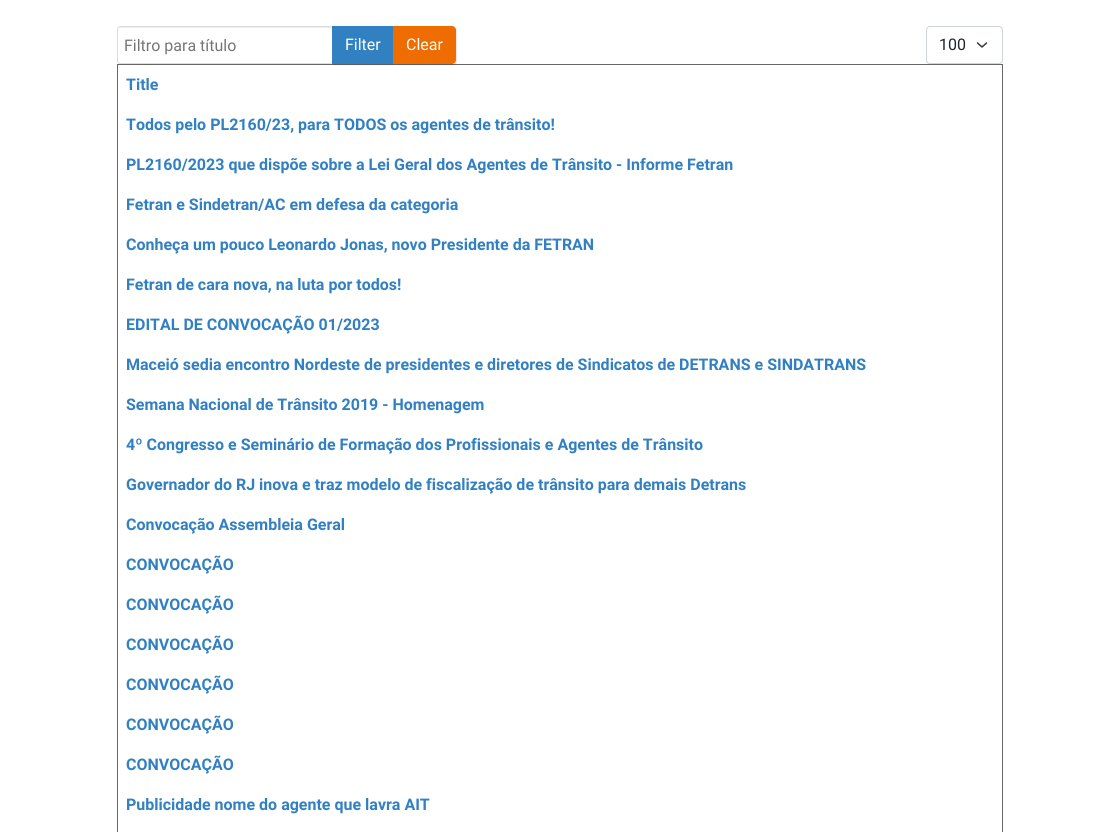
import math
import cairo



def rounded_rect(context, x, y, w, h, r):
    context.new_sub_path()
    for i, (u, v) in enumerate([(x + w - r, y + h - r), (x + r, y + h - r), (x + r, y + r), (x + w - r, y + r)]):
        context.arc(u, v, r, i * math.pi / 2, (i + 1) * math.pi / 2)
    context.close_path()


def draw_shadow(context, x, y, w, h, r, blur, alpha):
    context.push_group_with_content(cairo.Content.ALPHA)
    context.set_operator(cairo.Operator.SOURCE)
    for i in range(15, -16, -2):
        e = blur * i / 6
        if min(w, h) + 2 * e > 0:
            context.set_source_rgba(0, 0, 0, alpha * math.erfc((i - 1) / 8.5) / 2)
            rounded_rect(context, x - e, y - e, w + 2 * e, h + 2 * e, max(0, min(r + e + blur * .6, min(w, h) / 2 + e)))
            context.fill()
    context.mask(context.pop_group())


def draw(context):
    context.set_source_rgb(1, 1, 1)
    context.paint()
    context.set_source_rgb(236 / 255, 236 / 255, 236 / 255)
    context.new_path()
    context.move_to(120, 28)
    context.line_to(330, 28)
    context.curve_to(331, 28, 332, 29, 332, 30)
    context.curve_to(332, 29, 332, 27, 330, 27)
    context.line_to(120, 27)
    context.line_to(119, 28)
    context.line_to(118, 30)
    context.curve_to(118, 29, 119, 28, 120, 28)
    context.close_path()
    context.fill()
    rounded_rect(context, 117.5, 26.5, 215, 37, 2.5)
    context.set_source_rgb(221 / 255, 221 / 255, 221 / 255)
    context.set_line_width(1)
    context.stroke()
    context.set_source_rgb(102 / 255, 102 / 255, 102 / 255)
    context.rectangle(117, 64, 886, 1)
    context.fill()
    context.set_source_rgb(0, 0, 0)
    draw_shadow(context, 333, 27, 62, 38, 0, 0.5, 0.1)
    context.set_source_rgb(49 / 255, 128 / 255, 194 / 255)
    context.rectangle(332, 26, 61, 38)
    context.fill()
    context.set_source_rgb(0, 0, 0)
    draw_shadow(context, 394, 27, 63, 38, 4, 0.5, 0.1)
    context.set_source_rgb(239 / 255, 108 / 255, 0)
    context.new_path()
    context.move_to(393, 26)
    context.line_to(452, 26)
    context.curve_to(454, 26, 456, 28, 456, 30)
    context.line_to(456, 60)
    context.curve_to(456, 62, 454, 64, 452, 64)
    context.line_to(393, 64)
    context.close_path()
    context.fill()
    context.new_path()
    context.move_to(977.5, 43)
    context.line_to(982, 47)
    context.line_to(986.5, 43)
    context.set_source_rgb(52 / 255, 58 / 255, 64 / 255)
    context.set_line_width(1.5)
    context.set_line_cap(cairo.LineCap.ROUND)
    context.set_line_join(cairo.LineJoin.ROUND)
    context.stroke()
    rounded_rect(context, 926.5, 26.5, 76, 37, 3.5)
    context.set_source_rgb(206 / 255, 212 / 255, 218 / 255)
    context.set_line_width(1)
    context.set_line_cap(cairo.LineCap.BUTT)
    context.set_line_join(cairo.LineJoin.MITER)
    context.stroke()
    context.set_source_rgb(102 / 255, 102 / 255, 102 / 255)
    context.rectangle(1002, 64, 1, 768)
    context.fill()
    context.rectangle(117, 64, 1, 768)
    context.fill()
    context.select_font_face("Roboto")
    context.set_font_size(16)
    context.set_source_rgb(117 / 255, 117 / 255, 117 / 255)
    context.move_to(124, 51)
    context.show_text("Filtro para título")
    context.set_source_rgb(1, 1, 1)
    context.move_to(345, 50)
    context.show_text("Filter")
    context.move_to(406, 50)
    context.show_text("Clear")
    context.set_source_rgb(33 / 255, 37 / 255, 41 / 255)
    context.move_to(939, 50)
    context.show_text("100")
    context.select_font_face("Roboto", cairo.FontSlant.NORMAL, cairo.FontWeight.BOLD)
    context.set_source_rgb(49 / 255, 128 / 255, 194 / 255)
    context.move_to(126, 90)
    context.show_text("Title")
    context.move_to(126, 130)
    context.show_text("Todos pelo PL2160/23, para TODOS os agentes de trânsito!")
    context.move_to(126, 170)
    context.show_text("PL2160/2023 que dispõe sobre a Lei Geral dos Agentes de Trânsito - Informe Fetran")
    context.move_to(126, 210)
    context.show_text("Fetran e Sindetran/AC em defesa da categoria")
    context.move_to(126, 250)
    context.show_text("Conheça um pouco Leonardo Jonas, novo Presidente da FETRAN")
    context.move_to(126, 290)
    context.show_text("Fetran de cara nova, na luta por todos!")
    context.move_to(126, 330)
    context.show_text("EDITAL DE CONVOCAÇÃO 01/2023")
    context.move_to(126, 370)
    context.show_text("Maceió sedia encontro Nordeste de presidentes e diretores de Sindicatos de DETRANS e SINDATRANS")
    context.move_to(126, 410)
    context.show_text("Semana Nacional de Trânsito 2019 - Homenagem")
    context.move_to(126, 450)
    context.show_text("4º Congresso e Seminário de Formação dos Profissionais e Agentes de Trânsito")
    context.move_to(126, 490)
    context.show_text("Governador do RJ inova e traz modelo de fiscalização de trânsito para demais Detrans")
    context.move_to(126, 530)
    context.show_text("Convocação Assembleia Geral")
    context.move_to(126, 570)
    context.show_text("CONVOCAÇÃO")
    context.move_to(126, 610)
    context.show_text("CONVOCAÇÃO")
    context.move_to(126, 650)
    context.show_text("CONVOCAÇÃO")
    context.move_to(126, 690)
    context.show_text("CONVOCAÇÃO")
    context.move_to(126, 730)
    context.show_text("CONVOCAÇÃO")
    context.move_to(126, 770)
    context.show_text("CONVOCAÇÃO")
    context.move_to(126, 810)
    context.show_text("Publicidade nome do agente que lavra AIT")


surface = cairo.ImageSurface(cairo.Format.RGB24, 1120, 832)
context = cairo.Context(surface)
options = cairo.FontOptions()
options.set_hint_metrics(cairo.HintMetrics.OFF)
options.set_hint_style(cairo.HintStyle.NONE)
context.set_font_options(options)
context.set_miter_limit(4)
draw(context)
surface.write_to_png("out.png")
